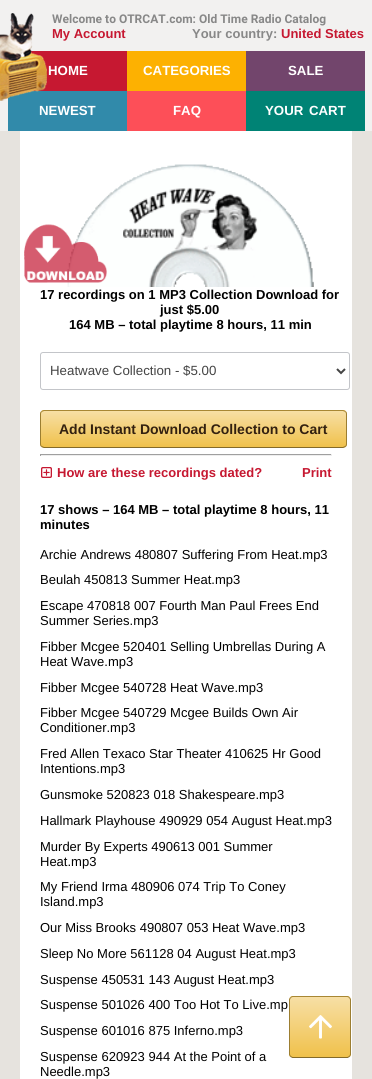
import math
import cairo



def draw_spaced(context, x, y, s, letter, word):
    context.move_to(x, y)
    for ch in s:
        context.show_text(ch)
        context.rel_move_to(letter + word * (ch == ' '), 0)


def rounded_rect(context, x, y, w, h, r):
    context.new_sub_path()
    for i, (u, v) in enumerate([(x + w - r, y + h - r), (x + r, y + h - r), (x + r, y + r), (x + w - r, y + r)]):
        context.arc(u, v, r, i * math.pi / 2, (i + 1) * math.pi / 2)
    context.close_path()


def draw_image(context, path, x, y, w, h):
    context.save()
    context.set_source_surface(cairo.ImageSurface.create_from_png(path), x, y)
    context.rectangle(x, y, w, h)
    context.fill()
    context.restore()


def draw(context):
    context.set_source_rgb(1, 1, 1)
    context.paint()
    context.rectangle(5, -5, 362, 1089)
    context.set_source_rgb(230 / 255, 227 / 255, 222 / 255)
    context.set_line_width(10)
    context.stroke()
    context.set_source_rgb(242 / 255, 241 / 255, 240 / 255)
    context.rectangle(0, 0, 372, 131)
    context.fill()
    context.set_source_rgb(198 / 255, 24 / 255, 49 / 255)
    context.rectangle(31, 51, 96, 40)
    context.fill()
    context.set_source_rgb(49 / 255, 138 / 255, 170 / 255)
    context.rectangle(8, 91, 119, 40)
    context.fill()
    draw_image(context, "images/1.png", 0, 13, 47, 88)
    context.set_source_rgb(253 / 255, 177 / 255, 1 / 255)
    context.rectangle(127, 51, 119, 40)
    context.fill()
    context.set_source_rgb(114 / 255, 69 / 255, 108 / 255)
    context.rectangle(246, 51, 119, 40)
    context.fill()
    context.set_source_rgb(253 / 255, 79 / 255, 88 / 255)
    context.rectangle(127, 91, 119, 40)
    context.fill()
    context.set_source_rgb(0, 131 / 255, 117 / 255)
    context.rectangle(246, 91, 119, 40)
    context.fill()
    context.set_source_rgb(230 / 255, 227 / 255, 222 / 255)
    context.rectangle(10, 131, 352, 948)
    context.fill()
    context.set_source_rgb(1, 1, 1)
    context.rectangle(20, 131, 332, 948)
    context.fill()
    draw_image(context, "images/3.png", 67, 164, 247, 123)
    draw_image(context, "images/2.png", 24, 224, 83, 59)
    rounded_rect(context, 40.5, 352.5, 309, 37, 2.5)
    context.set_source_rgb(195 / 255, 197 / 255, 201 / 255)
    context.set_line_width(1)
    context.stroke()
    context.new_path()
    context.move_to(337, 369)
    context.line_to(341, 373)
    context.line_to(345, 369)
    context.set_source_rgb(68 / 255, 68 / 255, 68 / 255)
    context.set_line_width(2)
    context.stroke()
    context.save()
    rounded_rect(context, 40, 410, 307, 38, 4)
    context.clip()
    gradient = cairo.LinearGradient(194, 375, 194, 411)
    gradient.add_color_stop_rgba(0, 247 / 255, 223 / 255, 165 / 255, 1)
    gradient.add_color_stop_rgba(1, 240 / 255, 193 / 255, 75 / 255, 1)
    context.set_source(gradient)
    context.rectangle(40, 410, 307, 1)
    context.fill()
    gradient = cairo.LinearGradient(194, 411, 194, 447)
    gradient.add_color_stop_rgba(0, 247 / 255, 223 / 255, 165 / 255, 1)
    gradient.add_color_stop_rgba(1, 240 / 255, 193 / 255, 75 / 255, 1)
    context.set_source(gradient)
    context.rectangle(40, 411, 307, 36)
    context.fill()
    gradient = cairo.LinearGradient(194, 447, 194, 483)
    gradient.add_color_stop_rgba(0, 247 / 255, 223 / 255, 165 / 255, 1)
    gradient.add_color_stop_rgba(1, 240 / 255, 193 / 255, 75 / 255, 1)
    context.set_source(gradient)
    context.rectangle(40, 447, 307, 1)
    context.fill()
    context.restore()
    context.new_path()
    context.move_to(41.5, 411.5)
    context.line_to(44, 410.5)
    context.line_to(343, 410.5)
    context.line_to(345.5, 411.5)
    context.set_source_rgb(168 / 255, 135 / 255, 52 / 255)
    context.set_line_width(1)
    context.stroke()
    context.new_path()
    context.move_to(345.5, 411.5)
    context.curve_to(346, 412, 346.5, 413, 346.5, 414)
    context.line_to(346.5, 444)
    context.curve_to(346.5, 445, 346, 446, 345.5, 446.5)
    context.set_source_rgb(156 / 255, 126 / 255, 49 / 255)
    context.stroke()
    context.new_path()
    context.move_to(345.5, 446.5)
    context.line_to(343, 447.5)
    context.line_to(44, 447.5)
    context.line_to(41.5, 446.5)
    context.set_source_rgb(132 / 255, 106 / 255, 41 / 255)
    context.stroke()
    context.new_path()
    context.move_to(41.5, 446.5)
    context.curve_to(41, 446, 40.5, 445, 40.5, 444)
    context.line_to(40.5, 414)
    context.curve_to(40.5, 413, 41, 412, 41.5, 411.5)
    context.set_source_rgb(156 / 255, 126 / 255, 49 / 255)
    context.stroke()
    context.set_source_rgb(159 / 255, 159 / 255, 159 / 255)
    context.rectangle(40, 454, 292, 1)
    context.fill()
    context.set_source_rgb(238 / 255, 238 / 255, 238 / 255)
    context.rectangle(331, 454, 1, 2)
    context.fill()
    context.rectangle(40, 455, 292, 1)
    context.fill()
    context.set_source_rgb(159 / 255, 159 / 255, 159 / 255)
    context.rectangle(40, 454, 1, 2)
    context.fill()
    draw_image(context, "images/4.png", 41, 467, 11, 11)
    context.save()
    rounded_rect(context, 289, 996, 62, 62, 4)
    context.clip()
    gradient = cairo.LinearGradient(320, 937, 320, 997)
    gradient.add_color_stop_rgba(0, 247 / 255, 223 / 255, 165 / 255, 1)
    gradient.add_color_stop_rgba(1, 240 / 255, 193 / 255, 75 / 255, 1)
    context.set_source(gradient)
    context.rectangle(289, 996, 62, 1)
    context.fill()
    gradient = cairo.LinearGradient(320, 997, 320, 1057)
    gradient.add_color_stop_rgba(0, 247 / 255, 223 / 255, 165 / 255, 1)
    gradient.add_color_stop_rgba(1, 240 / 255, 193 / 255, 75 / 255, 1)
    context.set_source(gradient)
    context.rectangle(289, 997, 62, 60)
    context.fill()
    context.restore()
    context.new_path()
    context.move_to(290.5, 997.5)
    context.line_to(292.5, 996.5)
    context.line_to(347.5, 996.5)
    context.line_to(349.5, 997.5)
    context.set_source_rgb(168 / 255, 135 / 255, 52 / 255)
    context.stroke()
    context.new_path()
    context.move_to(349.5, 997.5)
    context.line_to(350.5, 999.5)
    context.line_to(350.5, 1054.5)
    context.line_to(349.5, 1056.5)
    context.set_source_rgb(156 / 255, 126 / 255, 49 / 255)
    context.stroke()
    context.new_path()
    context.move_to(349.5, 1056.5)
    context.line_to(347.5, 1057.5)
    context.line_to(292.5, 1057.5)
    context.line_to(290.5, 1056.5)
    context.set_source_rgb(132 / 255, 106 / 255, 41 / 255)
    context.stroke()
    context.new_path()
    context.move_to(290.5, 1056.5)
    context.line_to(289.5, 1054.5)
    context.line_to(289.5, 999.5)
    context.line_to(290.5, 997.5)
    context.set_source_rgb(156 / 255, 126 / 255, 49 / 255)
    context.stroke()
    draw_image(context, "images/5.png", 309, 1015, 23, 24)
    context.select_font_face("Roboto", cairo.FontSlant.NORMAL, cairo.FontWeight.BOLD)
    context.set_font_size(12)
    context.set_source_rgb(136 / 255, 136 / 255, 136 / 255)
    context.move_to(52, 23)
    context.show_text("Welcome to OTRCAT.com: Old Time Radio Catalog")
    context.select_font_face("Liberation Sans", cairo.FontSlant.NORMAL, cairo.FontWeight.BOLD)
    context.set_font_size(13)
    context.set_source_rgb(198 / 255, 24 / 255, 49 / 255)
    context.move_to(52, 38)
    context.show_text("My Account")
    context.set_source_rgb(136 / 255, 136 / 255, 136 / 255)
    context.move_to(192, 38)
    context.show_text("Your country:")
    context.set_source_rgb(198 / 255, 24 / 255, 49 / 255)
    context.move_to(281, 38)
    context.show_text("United States")
    context.set_font_size(13.25)
    context.set_source_rgb(1, 1, 1)
    context.move_to(48, 75)
    context.show_text("HOME")
    context.move_to(143, 75)
    context.show_text("CATEGORIES")
    context.move_to(288, 75)
    context.show_text("SALE")
    context.move_to(39, 115)
    context.show_text("NEWEST")
    context.move_to(173, 115)
    context.show_text("FAQ")
    draw_spaced(context, 265, 115, "YOUR CART", 0, 2)
    context.set_font_size(13)
    context.set_source_rgb(0, 0, 0)
    context.move_to(40, 299)
    context.show_text("17 recordings on 1 MP3 Collection Download for")
    context.move_to(160, 314)
    context.show_text("just $5.00")
    context.move_to(69, 329)
    context.show_text("164 MB – total playtime 8 hours, 11 min")
    context.select_font_face("Liberation Sans")
    context.set_font_size(13.3)
    context.set_source_rgb(68 / 255, 68 / 255, 68 / 255)
    context.move_to(50, 375)
    context.show_text("Heatwave Collection - $5.00")
    context.select_font_face("Liberation Sans", cairo.FontSlant.NORMAL, cairo.FontWeight.BOLD)
    context.set_font_size(14)
    context.set_source_rgb(51 / 255, 33 / 255, 16 / 255)
    context.move_to(59, 434)
    context.show_text("Add Instant Download Collection to Cart")
    context.set_font_size(13)
    context.set_source_rgb(198 / 255, 24 / 255, 49 / 255)
    context.move_to(57, 477)
    context.show_text("How are these recordings dated?")
    context.set_source_rgb(0, 0, 0)
    context.move_to(40, 514)
    context.show_text("17 shows – 164 MB – total playtime 8 hours, 11")
    context.move_to(40, 529)
    context.show_text("minutes")
    context.select_font_face("Liberation Sans")
    context.move_to(40, 559)
    context.show_text("Archie Andrews 480807 Suffering From Heat.mp3")
    context.move_to(40, 584)
    context.show_text("Beulah 450813 Summer Heat.mp3")
    context.move_to(40, 610)
    context.show_text("Escape 470818 007 Fourth Man Paul Frees End")
    context.move_to(40, 625)
    context.show_text("Summer Series.mp3")
    context.move_to(40, 651)
    context.show_text("Fibber Mcgee 520401 Selling Umbrellas During A")
    context.move_to(40, 666)
    context.show_text("Heat Wave.mp3")
    context.move_to(40, 692)
    context.show_text("Fibber Mcgee 540728 Heat Wave.mp3")
    context.move_to(40, 717)
    context.show_text("Fibber Mcgee 540729 Mcgee Builds Own Air")
    context.move_to(40, 732)
    context.show_text("Conditioner.mp3")
    context.move_to(40, 758)
    context.show_text("Fred Allen Texaco Star Theater 410625 Hr Good")
    context.move_to(40, 773)
    context.show_text("Intentions.mp3")
    context.move_to(40, 799)
    context.show_text("Gunsmoke 520823 018 Shakespeare.mp3")
    context.move_to(40, 825)
    context.show_text("Hallmark Playhouse 490929 054 August Heat.mp3")
    context.move_to(40, 851)
    context.show_text("Murder By Experts 490613 001 Summer")
    context.move_to(40, 866)
    context.show_text("Heat.mp3")
    context.move_to(40, 891)
    context.show_text("My Friend Irma 480906 074 Trip To Coney")
    context.move_to(40, 906)
    context.show_text("Island.mp3")
    context.move_to(40, 932)
    context.show_text("Our Miss Brooks 490807 053 Heat Wave.mp3")
    context.move_to(40, 958)
    context.show_text("Sleep No More 561128 04 August Heat.mp3")
    context.move_to(40, 984)
    context.show_text("Suspense 450531 143 August Heat.mp3")
    context.move_to(40, 1009)
    context.show_text("Suspense 501026 400 Too Hot To Live.mp")
    context.move_to(40, 1035)
    context.show_text("Suspense 601016 875 Inferno.mp3")
    context.move_to(40, 1061)
    context.show_text("Suspense 620923 944 At the Point of a")
    context.move_to(40, 1076)
    context.show_text("Needle.mp3")
    context.select_font_face("Liberation Sans", cairo.FontSlant.NORMAL, cairo.FontWeight.BOLD)
    context.set_source_rgb(198 / 255, 24 / 255, 49 / 255)
    context.move_to(302, 477)
    context.show_text("Print")


surface = cairo.ImageSurface(cairo.Format.RGB24, 372, 1079)
context = cairo.Context(surface)
options = cairo.FontOptions()
options.set_hint_metrics(cairo.HintMetrics.OFF)
options.set_hint_style(cairo.HintStyle.NONE)
context.set_font_options(options)
context.set_miter_limit(4)
draw(context)
surface.write_to_png("out.png")
